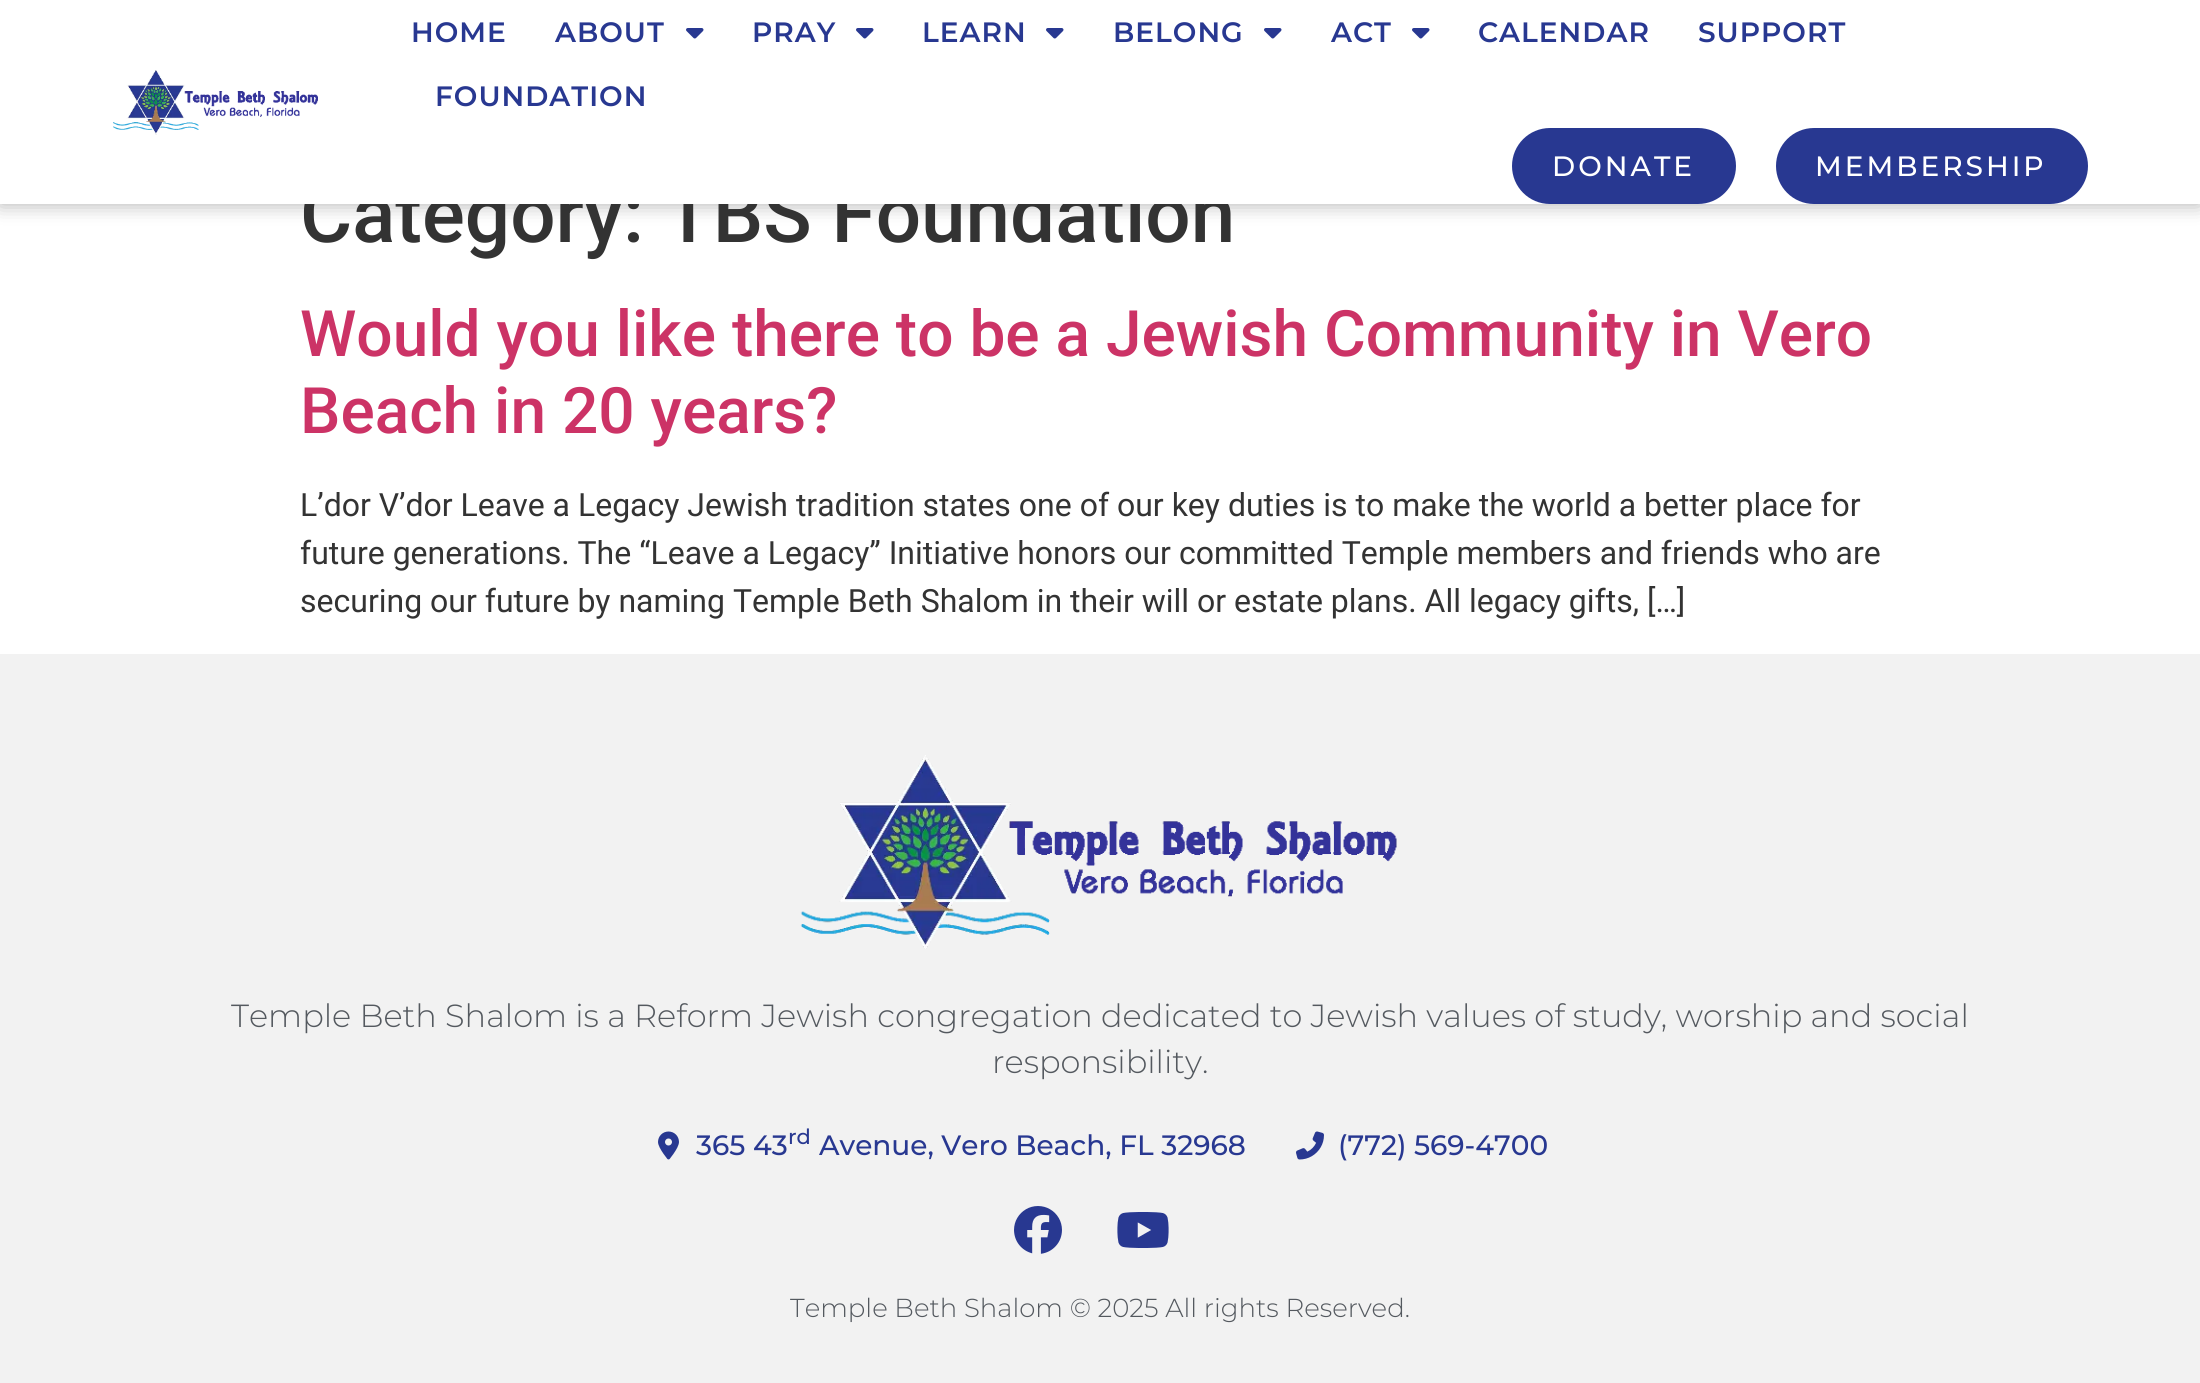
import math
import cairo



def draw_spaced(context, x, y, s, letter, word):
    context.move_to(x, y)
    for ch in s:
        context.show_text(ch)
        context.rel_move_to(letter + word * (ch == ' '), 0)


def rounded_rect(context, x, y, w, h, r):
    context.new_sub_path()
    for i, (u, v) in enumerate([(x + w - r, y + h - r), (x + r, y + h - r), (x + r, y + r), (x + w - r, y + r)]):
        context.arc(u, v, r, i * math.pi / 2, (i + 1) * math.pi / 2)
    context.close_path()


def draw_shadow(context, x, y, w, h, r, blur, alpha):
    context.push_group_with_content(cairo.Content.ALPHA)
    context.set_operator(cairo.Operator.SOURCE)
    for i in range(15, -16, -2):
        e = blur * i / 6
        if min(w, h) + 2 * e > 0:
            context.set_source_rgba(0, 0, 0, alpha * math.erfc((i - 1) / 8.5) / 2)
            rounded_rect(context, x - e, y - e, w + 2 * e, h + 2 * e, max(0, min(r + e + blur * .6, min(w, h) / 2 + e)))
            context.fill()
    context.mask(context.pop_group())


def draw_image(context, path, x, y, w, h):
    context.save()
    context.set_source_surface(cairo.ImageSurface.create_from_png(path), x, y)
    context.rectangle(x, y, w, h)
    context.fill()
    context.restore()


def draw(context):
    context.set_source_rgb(1, 1, 1)
    context.paint()
    context.set_source_rgb(0, 0, 0)
    draw_shadow(context, 0, 0, 2200, 204, 0, 10, 0.32)
    context.set_source_rgb(242 / 255, 242 / 255, 242 / 255)
    context.rectangle(0, 654, 2200, 729)
    context.fill()
    draw_image(context, "images/3.png", 800, 755, 597, 194)
    draw_image(context, "images/4.png", 658, 1131, 21, 29)
    draw_image(context, "images/5.png", 1296, 1131, 28, 29)
    draw_image(context, "images/6.png", 1014, 1206, 48, 48)
    draw_image(context, "images/7.png", 1117, 1212, 52, 36)
    context.select_font_face("Roboto Medium")
    context.set_font_size(80)
    context.set_source_rgb(51 / 255, 51 / 255, 51 / 255)
    context.move_to(300, 242)
    context.show_text("Category: TBS Foundation")
    context.set_source_rgb(1, 1, 1)
    context.rectangle(0, 0, 2200, 204)
    context.fill()
    context.select_font_face("Montserrat SemiBold")
    context.set_font_size(28)
    context.set_source_rgb(40 / 255, 56 / 255, 145 / 255)
    draw_spaced(context, 435, 106, "FOUNDATION", 1, 0)
    draw_spaced(context, 1698, 42, "SUPPORT", 1, 0)
    draw_spaced(context, 1478, 42, "CALENDAR", 1, 0)
    draw_image(context, "images/2.png", 1412, 28, 18, 11)
    draw_spaced(context, 1331, 42, "ACT", 1, 0)
    draw_image(context, "images/2.png", 1264, 28, 18, 11)
    draw_spaced(context, 1113, 42, "BELONG", 1, 0)
    draw_image(context, "images/2.png", 1046, 28, 18, 11)
    draw_spaced(context, 922, 42, "LEARN", 1, 0)
    draw_image(context, "images/2.png", 856, 28, 18, 11)
    draw_spaced(context, 752, 42, "PRAY", 1, 0)
    draw_image(context, "images/2.png", 686, 28, 18, 11)
    draw_spaced(context, 555, 42, "ABOUT", 1, 0)
    draw_spaced(context, 411, 42, "HOME", 1, 0)
    rounded_rect(context, 1776, 128, 312, 76, 38)
    context.fill()
    context.select_font_face("Montserrat Medium")
    context.set_source_rgb(1, 1, 1)
    draw_spaced(context, 1815, 176, "MEMBERSHIP", 3, 0)
    context.set_source_rgb(40 / 255, 56 / 255, 145 / 255)
    rounded_rect(context, 1512, 128, 224, 76, 38)
    context.fill()
    context.set_source_rgb(1, 1, 1)
    draw_spaced(context, 1552, 176, "DONATE", 3, 0)
    draw_image(context, "images/1.png", 113, 70, 205, 65)
    context.select_font_face("Roboto Medium")
    context.set_font_size(64)
    context.set_source_rgb(204 / 255, 51 / 255, 102 / 255)
    context.move_to(300, 356)
    context.show_text("Would you like there to be a Jewish Community in Vero")
    context.move_to(300, 433)
    context.show_text("Beach in 20 years?")
    context.select_font_face("Roboto")
    context.set_font_size(32)
    context.set_source_rgb(51 / 255, 51 / 255, 51 / 255)
    context.move_to(300, 516)
    context.show_text("L’dor V’dor Leave a Legacy Jewish tradition states one of our key duties is to make the world a better place for")
    context.move_to(300, 564)
    context.show_text("future generations. The “Leave a Legacy” Initiative honors our committed Temple members and friends who are")
    context.move_to(300, 612)
    context.show_text("securing our future by naming Temple Beth Shalom in their will or estate plans. All legacy gifts, […]")
    context.select_font_face("Montserrat Light")
    context.set_source_rgb(84 / 255, 89 / 255, 95 / 255)
    context.move_to(231, 1027)
    context.show_text("Temple Beth Shalom is a Reform Jewish congregation dedicated to Jewish values of study, worship and social")
    context.move_to(992, 1073)
    context.show_text("responsibility.")
    context.select_font_face("Montserrat Medium")
    context.set_font_size(28)
    context.set_source_rgb(40 / 255, 56 / 255, 145 / 255)
    context.move_to(696, 1155)
    context.show_text("365 43")
    context.set_font_size(21)
    context.move_to(788, 1144)
    context.show_text("rd")
    context.set_font_size(28)
    context.move_to(819, 1155)
    context.show_text("Avenue, Vero Beach, FL 32968")
    context.move_to(1338, 1155)
    context.show_text("(772) 569-4700")
    context.select_font_face("Montserrat Light")
    context.set_font_size(26)
    context.set_source_rgb(84 / 255, 89 / 255, 95 / 255)
    context.move_to(790, 1317)
    context.show_text("Temple Beth Shalom © 2025 All rights Reserved.")


surface = cairo.ImageSurface(cairo.Format.RGB24, 2200, 1383)
context = cairo.Context(surface)
options = cairo.FontOptions()
options.set_hint_metrics(cairo.HintMetrics.OFF)
options.set_hint_style(cairo.HintStyle.NONE)
context.set_font_options(options)
context.set_miter_limit(4)
draw(context)
surface.write_to_png("out.png")
